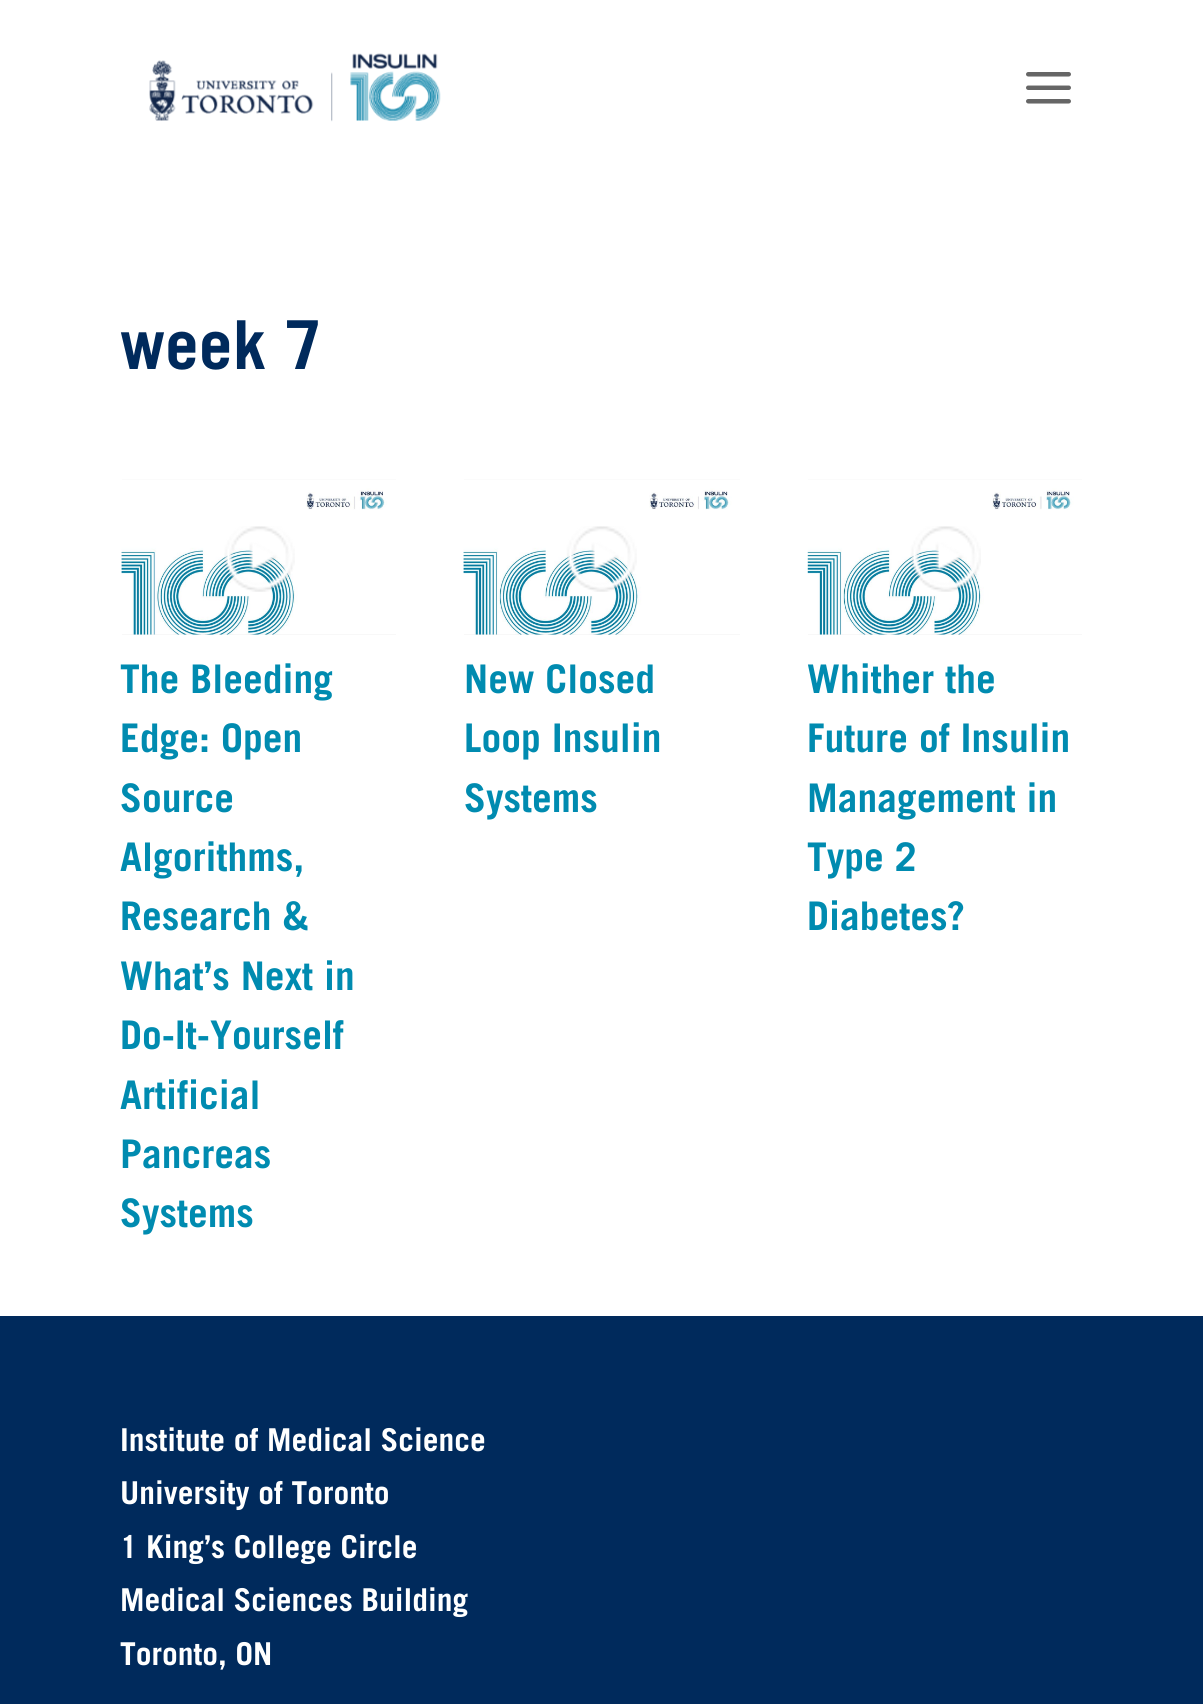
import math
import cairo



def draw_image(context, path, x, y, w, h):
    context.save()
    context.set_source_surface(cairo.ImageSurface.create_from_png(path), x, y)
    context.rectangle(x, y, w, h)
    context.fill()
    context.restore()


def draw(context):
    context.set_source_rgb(1, 1, 1)
    context.paint()
    draw_image(context, "images/1.png", 149, 53, 292, 69)
    draw_image(context, "images/2.png", 1026, 72, 45, 32)
    context.set_source_rgb(240 / 255, 240 / 255, 240 / 255)
    context.rectangle(122, 479, 274, 156)
    context.fill()
    draw_image(context, "images/3.png", 121, 479, 275, 156)
    draw_image(context, "images/4.png", 224, 526, 71, 66)
    context.rectangle(464, 479, 276, 156)
    context.fill()
    draw_image(context, "images/5.png", 463, 479, 277, 156)
    draw_image(context, "images/6.png", 566, 526, 71, 66)
    context.rectangle(808, 479, 274, 156)
    context.fill()
    draw_image(context, "images/7.png", 807, 479, 275, 156)
    draw_image(context, "images/8.png", 910, 526, 71, 66)
    context.set_source_rgb(0, 42 / 255, 92 / 255)
    context.rectangle(0, 1316, 1203, 388)
    context.fill()
    context.select_font_face("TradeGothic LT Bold", cairo.FontSlant.NORMAL, cairo.FontWeight.BOLD)
    context.set_font_size(67.5)
    context.move_to(120, 369)
    context.show_text("week 7")
    context.set_font_size(39.5)
    context.set_source_rgb(0, 139 / 255, 176 / 255)
    context.move_to(120, 693)
    context.show_text("The Bleeding")
    context.move_to(120, 752)
    context.show_text("Edge: Open")
    context.move_to(120, 812)
    context.show_text("Source")
    context.move_to(120, 871)
    context.show_text("Algorithms,")
    context.move_to(120, 930)
    context.show_text("Research &")
    context.move_to(120, 990)
    context.show_text("What’s Next in")
    context.move_to(120, 1049)
    context.show_text("Do-It-Yourself")
    context.move_to(120, 1109)
    context.show_text("Artificial")
    context.move_to(120, 1168)
    context.show_text("Pancreas")
    context.move_to(120, 1227)
    context.show_text("Systems")
    context.move_to(464, 693)
    context.show_text("New Closed")
    context.move_to(464, 752)
    context.show_text("Loop Insulin")
    context.move_to(464, 812)
    context.show_text("Systems")
    context.move_to(807, 693)
    context.show_text("Whither the")
    context.move_to(807, 752)
    context.show_text("Future of Insulin")
    context.move_to(807, 812)
    context.show_text("Management in")
    context.move_to(807, 871)
    context.show_text("Type 2")
    context.move_to(807, 930)
    context.show_text("Diabetes?")
    context.set_font_size(31.5)
    context.set_source_rgb(1, 1, 1)
    context.move_to(120, 1451)
    context.show_text("Institute of Medical Science")
    context.move_to(120, 1504)
    context.show_text("University of Toronto")
    context.move_to(120, 1558)
    context.show_text("1 King’s College Circle")
    context.move_to(120, 1611)
    context.show_text("Medical Sciences Building")
    context.move_to(120, 1665)
    context.show_text("Toronto, ON")


surface = cairo.ImageSurface(cairo.Format.RGB24, 1203, 1704)
context = cairo.Context(surface)
options = cairo.FontOptions()
options.set_hint_metrics(cairo.HintMetrics.OFF)
options.set_hint_style(cairo.HintStyle.NONE)
context.set_font_options(options)
context.set_miter_limit(4)
draw(context)
surface.write_to_png("out.png")
